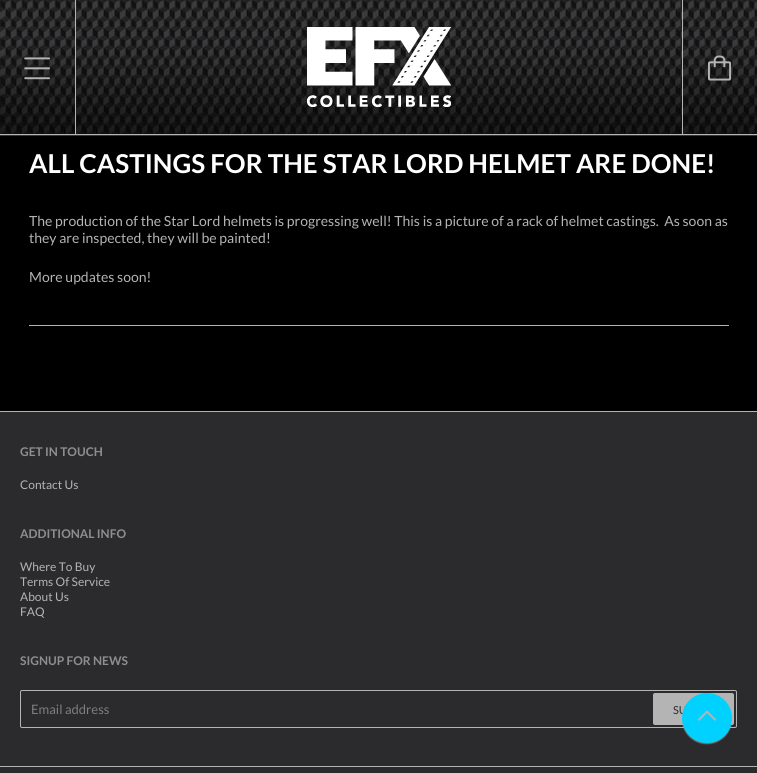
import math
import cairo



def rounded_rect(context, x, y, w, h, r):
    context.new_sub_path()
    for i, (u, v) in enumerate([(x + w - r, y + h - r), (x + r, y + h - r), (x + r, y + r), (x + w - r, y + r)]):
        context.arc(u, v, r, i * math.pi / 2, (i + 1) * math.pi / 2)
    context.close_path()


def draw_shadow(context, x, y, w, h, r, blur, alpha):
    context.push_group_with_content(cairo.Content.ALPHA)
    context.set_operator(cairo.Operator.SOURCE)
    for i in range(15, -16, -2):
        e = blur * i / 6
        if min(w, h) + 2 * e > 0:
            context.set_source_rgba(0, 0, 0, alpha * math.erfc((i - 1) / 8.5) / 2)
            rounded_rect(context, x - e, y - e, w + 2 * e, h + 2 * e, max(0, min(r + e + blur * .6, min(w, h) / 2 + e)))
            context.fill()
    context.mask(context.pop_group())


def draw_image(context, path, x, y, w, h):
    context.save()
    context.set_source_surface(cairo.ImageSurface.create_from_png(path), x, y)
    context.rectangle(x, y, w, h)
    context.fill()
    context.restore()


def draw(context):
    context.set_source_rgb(0, 0, 0)
    context.paint()
    context.set_source_rgb(54 / 255, 54 / 255, 54 / 255)
    context.rectangle(0, 135, 757, 1)
    context.fill()
    context.set_source_rgb(180 / 255, 180 / 255, 180 / 255)
    context.rectangle(0, 134, 757, 1)
    context.fill()
    draw_image(context, "images/1.png", 0, 0, 75, 134)
    draw_image(context, "images/2.png", 24, 57, 26, 23)
    context.rectangle(75, 0, 1, 134)
    context.fill()
    draw_image(context, "images/7.png", 230, 0, 298, 96)
    draw_image(context, "images/3.png", 76, 0, 606, 134)
    draw_image(context, "images/4.png", 307, 27, 144, 80)
    context.rectangle(682, 0, 1, 134)
    context.fill()
    draw_image(context, "images/5.png", 683, 0, 74, 134)
    draw_image(context, "images/6.png", 708, 55, 24, 26)
    context.rectangle(29, 325, 700, 1)
    context.fill()
    context.set_source_rgb(43 / 255, 43 / 255, 45 / 255)
    context.rectangle(0, 412, 757, 361)
    context.fill()
    context.set_source_rgb(180 / 255, 180 / 255, 180 / 255)
    context.rectangle(0, 411, 757, 1)
    context.fill()
    rounded_rect(context, 20.5, 690.5, 716, 37, 1.5)
    context.set_line_width(1)
    context.stroke()
    rounded_rect(context, 653, 693, 81, 32, 2)
    context.fill()
    context.rectangle(0, 766, 757, 1)
    context.fill()
    context.set_source_rgb(180 / 255, 180 / 255, 180 / 255)
    draw_shadow(context, 682, 694, 50, 50, 25, 0.5, 0.6)
    context.select_font_face("Lato", cairo.FontSlant.NORMAL, cairo.FontWeight.BOLD)
    context.set_font_size(26)
    context.set_source_rgb(1, 1, 1)
    context.move_to(29, 173)
    context.show_text("ALL CASTINGS FOR THE STAR LORD HELMET ARE DONE!")
    context.select_font_face("Lato")
    context.set_font_size(14)
    context.set_source_rgb(180 / 255, 180 / 255, 180 / 255)
    context.move_to(29, 226)
    context.show_text("The production of the Star Lord helmets is progressing well! This is a picture of a rack of helmet castings.  As soon as")
    context.move_to(29, 243)
    context.show_text("they are inspected, they will be painted!")
    context.move_to(29, 282)
    context.show_text("More updates soon!")
    context.select_font_face("Lato", cairo.FontSlant.NORMAL, cairo.FontWeight.BOLD)
    context.set_font_size(12)
    context.set_source_rgb(142 / 255, 142 / 255, 142 / 255)
    context.move_to(20, 456)
    context.show_text("GET IN TOUCH")
    context.select_font_face("Lato")
    context.set_source_rgb(180 / 255, 180 / 255, 180 / 255)
    context.move_to(20, 489)
    context.show_text("Contact Us")
    context.select_font_face("Lato", cairo.FontSlant.NORMAL, cairo.FontWeight.BOLD)
    context.set_source_rgb(142 / 255, 142 / 255, 142 / 255)
    context.move_to(20, 538)
    context.show_text("ADDITIONAL INFO")
    context.select_font_face("Lato")
    context.set_source_rgb(180 / 255, 180 / 255, 180 / 255)
    context.move_to(20, 571)
    context.show_text("Where To Buy")
    context.move_to(20, 586)
    context.show_text("Terms Of Service")
    context.move_to(20, 601)
    context.show_text("About Us")
    context.move_to(20, 616)
    context.show_text("FAQ")
    context.select_font_face("Lato", cairo.FontSlant.NORMAL, cairo.FontWeight.BOLD)
    context.set_source_rgb(142 / 255, 142 / 255, 142 / 255)
    context.move_to(20, 665)
    context.show_text("SIGNUP FOR NEWS")
    context.select_font_face("Lato")
    context.set_font_size(13)
    context.set_source_rgb(125 / 255, 125 / 255, 126 / 255)
    context.move_to(31, 714)
    context.show_text("Email address")
    context.set_font_size(11)
    context.set_source_rgb(43 / 255, 43 / 255, 45 / 255)
    context.move_to(673, 714)
    context.show_text("SU")
    context.set_source_rgb(0, 209 / 255, 1)
    context.new_path()
    context.arc(707, 718, 25, 0, 2 * math.pi)
    context.fill()
    draw_image(context, "images/8.png", 698, 710, 18, 11)


surface = cairo.ImageSurface(cairo.Format.RGB24, 757, 773)
context = cairo.Context(surface)
options = cairo.FontOptions()
options.set_hint_metrics(cairo.HintMetrics.OFF)
options.set_hint_style(cairo.HintStyle.NONE)
context.set_font_options(options)
context.set_miter_limit(4)
draw(context)
surface.write_to_png("out.png")
